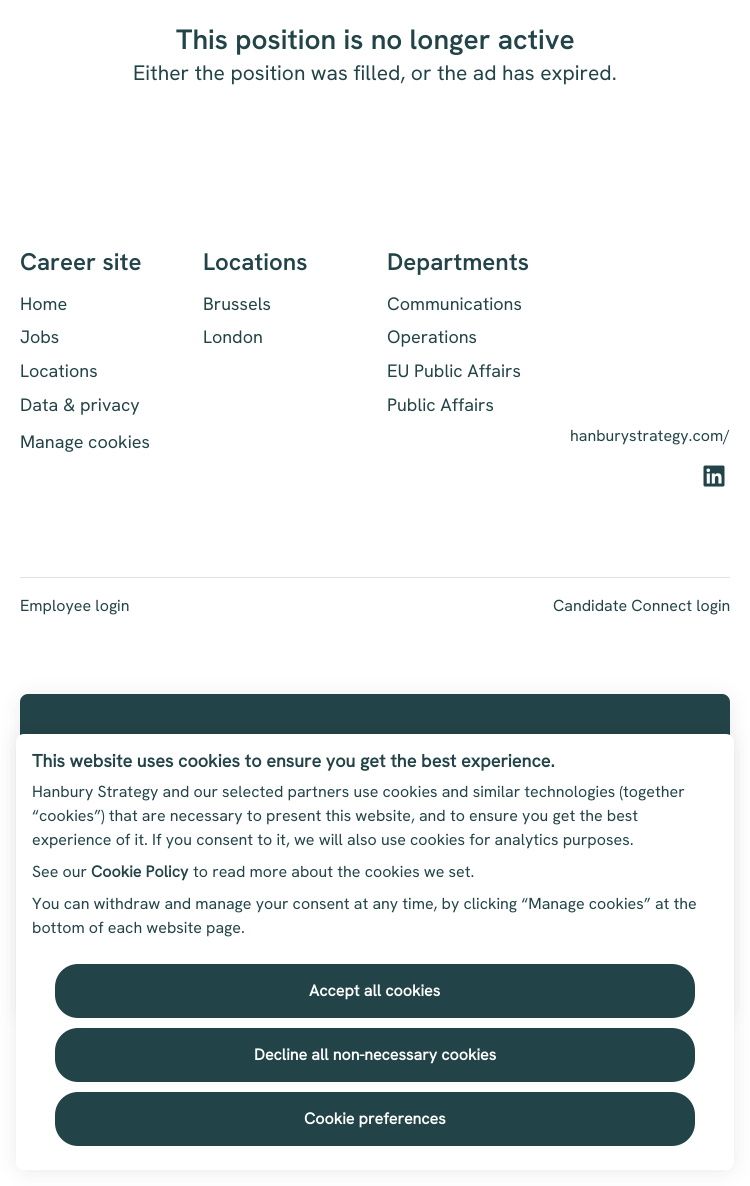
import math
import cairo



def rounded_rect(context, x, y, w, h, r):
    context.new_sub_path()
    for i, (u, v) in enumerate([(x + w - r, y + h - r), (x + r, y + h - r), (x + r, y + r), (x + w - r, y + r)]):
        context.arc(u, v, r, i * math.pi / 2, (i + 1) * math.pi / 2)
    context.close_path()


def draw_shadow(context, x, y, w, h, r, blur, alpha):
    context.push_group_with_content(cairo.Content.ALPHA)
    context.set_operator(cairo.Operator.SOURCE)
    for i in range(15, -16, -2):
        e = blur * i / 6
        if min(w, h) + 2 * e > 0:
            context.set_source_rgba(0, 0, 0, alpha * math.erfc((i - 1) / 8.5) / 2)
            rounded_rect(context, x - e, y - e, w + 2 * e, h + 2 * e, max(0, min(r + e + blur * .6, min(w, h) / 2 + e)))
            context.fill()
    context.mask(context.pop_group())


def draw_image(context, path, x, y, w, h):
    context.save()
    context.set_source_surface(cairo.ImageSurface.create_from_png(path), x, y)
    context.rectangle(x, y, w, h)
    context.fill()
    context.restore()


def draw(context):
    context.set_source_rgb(1, 1, 1)
    context.paint()
    draw_image(context, "images/1.png", 703, 465, 22, 22)
    context.set_source_rgb(222 / 255, 227 / 255, 227 / 255)
    context.rectangle(20, 577, 710, 1)
    context.fill()
    context.set_source_rgb(0, 0, 0)
    draw_shadow(context, 30, 706, 690, 304, 0, 13.5, 0.18)
    context.set_source_rgb(34 / 255, 67 / 255, 71 / 255)
    rounded_rect(context, 20, 694, 710, 324, 8)
    context.fill()
    context.set_source_rgb(0, 0, 0)
    draw_shadow(context, 26, 746, 698, 416, 0, 13.5, 0.18)
    context.set_source_rgb(1, 1, 1)
    rounded_rect(context, 16, 734, 718, 436, 8)
    context.fill()
    context.set_source_rgb(34 / 255, 67 / 255, 71 / 255)
    rounded_rect(context, 55, 964, 640, 54, 23)
    context.fill()
    rounded_rect(context, 55, 1028, 640, 54, 23)
    context.fill()
    rounded_rect(context, 55, 1092, 640, 54, 23)
    context.fill()
    context.select_font_face("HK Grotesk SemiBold")
    context.set_font_size(28)
    context.move_to(176, 49)
    context.show_text("This position is no longer active")
    context.select_font_face("HK Grotesk")
    context.set_font_size(21)
    context.move_to(133, 80)
    context.show_text("Either the position was filled, or the ad has expired.")
    context.select_font_face("HK Grotesk SemiBold")
    context.set_font_size(24)
    context.move_to(20, 270)
    context.show_text("Career site")
    context.select_font_face("HK Grotesk")
    context.set_font_size(18)
    context.move_to(20, 310)
    context.show_text("Home")
    context.move_to(20, 343)
    context.show_text("Jobs")
    context.move_to(20, 377)
    context.show_text("Locations")
    context.move_to(20, 411)
    context.show_text("Data & privacy")
    context.move_to(20, 448)
    context.show_text("Manage cookies")
    context.select_font_face("HK Grotesk SemiBold")
    context.set_font_size(24)
    context.move_to(203, 270)
    context.show_text("Locations")
    context.select_font_face("HK Grotesk")
    context.set_font_size(18)
    context.move_to(203, 310)
    context.show_text("Brussels")
    context.move_to(203, 343)
    context.show_text("London")
    context.select_font_face("HK Grotesk SemiBold")
    context.set_font_size(24)
    context.move_to(387, 270)
    context.show_text("Departments")
    context.select_font_face("HK Grotesk")
    context.set_font_size(18)
    context.move_to(387, 310)
    context.show_text("Communications")
    context.move_to(387, 343)
    context.show_text("Operations")
    context.move_to(387, 377)
    context.show_text("EU Public Affairs")
    context.move_to(387, 411)
    context.show_text("Public Affairs")
    context.set_font_size(16)
    context.move_to(570, 441)
    context.show_text("hanburystrategy.com/")
    context.move_to(20, 611)
    context.show_text("Employee login")
    context.move_to(553, 611)
    context.show_text("Candidate Connect login")
    context.select_font_face("HK Grotesk", cairo.FontSlant.NORMAL, cairo.FontWeight.BOLD)
    context.set_font_size(18)
    context.move_to(32, 767)
    context.show_text("This website uses cookies to ensure you get the best experience.")
    context.select_font_face("HK Grotesk")
    context.set_font_size(16)
    context.move_to(32, 797)
    context.show_text("Hanbury Strategy and our selected partners use cookies and similar technologies (together")
    context.move_to(32, 821)
    context.show_text("“cookies”) that are necessary to present this website, and to ensure you get the best")
    context.move_to(32, 845)
    context.show_text("experience of it. If you consent to it, we will also use cookies for analytics purposes.")
    context.move_to(32, 877)
    context.show_text("See our")
    context.select_font_face("HK Grotesk", cairo.FontSlant.NORMAL, cairo.FontWeight.BOLD)
    context.move_to(91, 877)
    context.show_text("Cookie Policy")
    context.select_font_face("HK Grotesk")
    context.move_to(193, 877)
    context.show_text("to read more about the cookies we set.")
    context.move_to(32, 909)
    context.show_text("You can withdraw and manage your consent at any time, by clicking “Manage cookies” at the")
    context.move_to(32, 933)
    context.show_text("bottom of each website page.")
    context.select_font_face("HK Grotesk", cairo.FontSlant.NORMAL, cairo.FontWeight.BOLD)
    context.set_source_rgb(1, 1, 1)
    context.move_to(309, 996)
    context.show_text("Accept all cookies")
    context.move_to(254, 1060)
    context.show_text("Decline all non-necessary cookies")
    context.move_to(304, 1124)
    context.show_text("Cookie preferences")


surface = cairo.ImageSurface(cairo.Format.RGB24, 750, 1186)
context = cairo.Context(surface)
options = cairo.FontOptions()
options.set_hint_metrics(cairo.HintMetrics.OFF)
options.set_hint_style(cairo.HintStyle.NONE)
context.set_font_options(options)
context.set_miter_limit(4)
draw(context)
surface.write_to_png("out.png")
